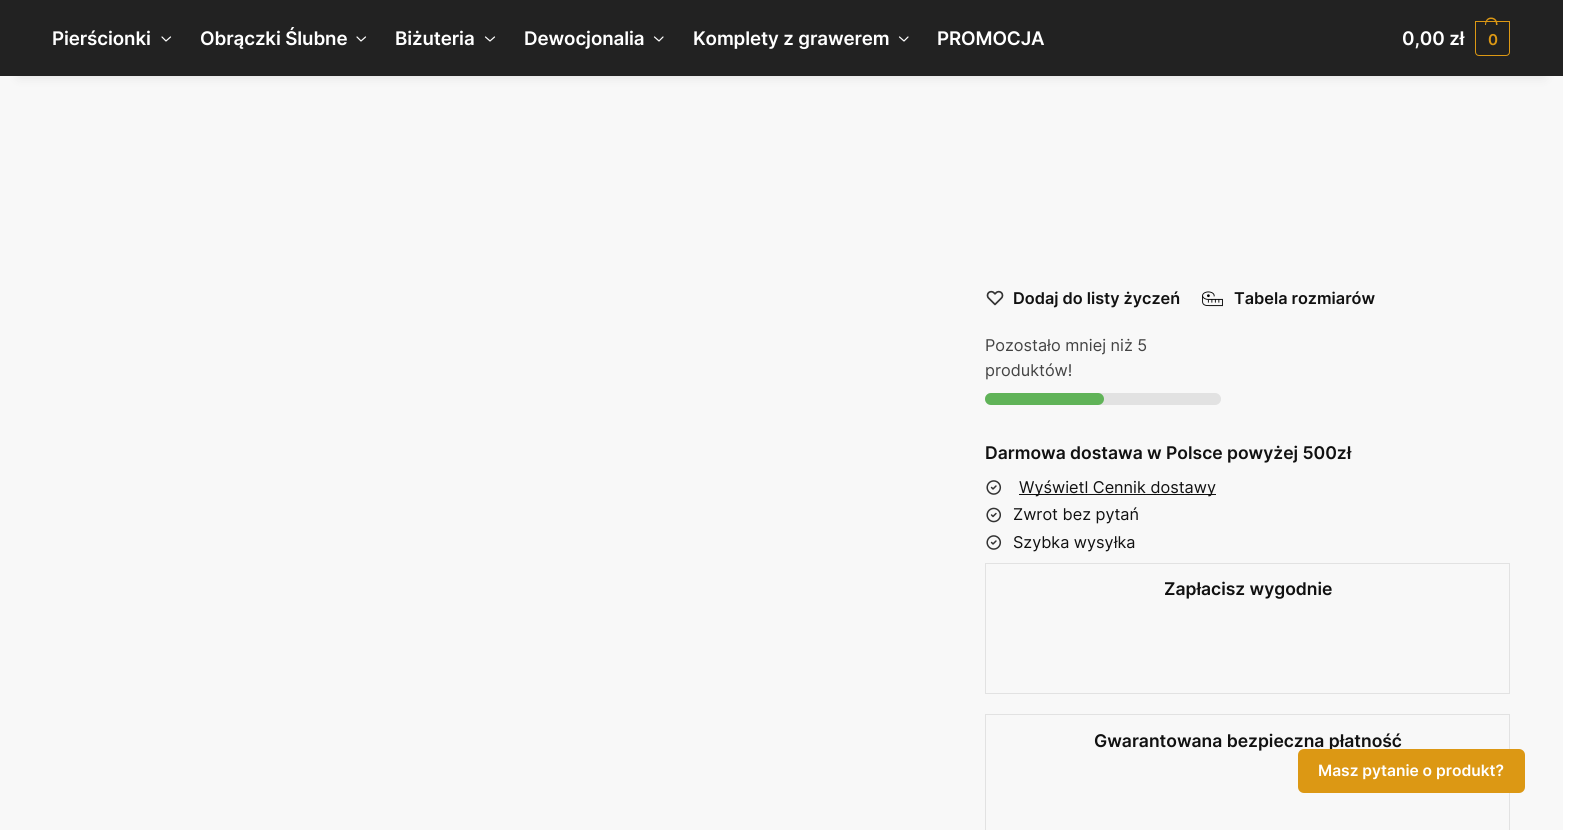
import math
import cairo



def draw_spaced(context, x, y, s, letter, word):
    context.move_to(x, y)
    for ch in s:
        context.show_text(ch)
        context.rel_move_to(letter + word * (ch == ' '), 0)


def rounded_rect(context, x, y, w, h, r):
    context.new_sub_path()
    for i, (u, v) in enumerate([(x + w - r, y + h - r), (x + r, y + h - r), (x + r, y + r), (x + w - r, y + r)]):
        context.arc(u, v, r, i * math.pi / 2, (i + 1) * math.pi / 2)
    context.close_path()


def draw_shadow(context, x, y, w, h, r, blur, alpha):
    context.push_group_with_content(cairo.Content.ALPHA)
    context.set_operator(cairo.Operator.SOURCE)
    for i in range(15, -16, -2):
        e = blur * i / 6
        if min(w, h) + 2 * e > 0:
            context.set_source_rgba(0, 0, 0, alpha * math.erfc((i - 1) / 8.5) / 2)
            rounded_rect(context, x - e, y - e, w + 2 * e, h + 2 * e, max(0, min(r + e + blur * .6, min(w, h) / 2 + e)))
            context.fill()
    context.mask(context.pop_group())


def draw_image(context, path, x, y, w, h):
    context.save()
    context.set_source_surface(cairo.ImageSurface.create_from_png(path), x, y)
    context.rectangle(x, y, w, h)
    context.fill()
    context.restore()


def draw(context):
    context.set_source_rgb(1, 1, 1)
    context.paint()
    context.set_source_rgb(248 / 255, 248 / 255, 248 / 255)
    context.rectangle(0, 76, 1563, 754)
    context.fill()
    context.set_source_rgb(0, 0, 0)
    draw_shadow(context, 19, 38, 1525, 38, 0, 6, 0.1)
    context.set_source_rgb(34 / 255, 34 / 255, 34 / 255)
    context.rectangle(0, 0, 1563, 76)
    context.fill()
    context.new_path()
    context.move_to(170.5, 37)
    context.line_to(166, 41)
    context.line_to(162, 37)
    context.set_source_rgb(1, 1, 1)
    context.set_line_width(1.2)
    context.set_line_cap(cairo.LineCap.ROUND)
    context.set_line_join(cairo.LineJoin.ROUND)
    context.stroke()
    context.new_path()
    context.move_to(365.5, 37)
    context.line_to(361, 41)
    context.line_to(357, 37)
    context.stroke()
    context.new_path()
    context.move_to(494.5, 37)
    context.line_to(490, 41)
    context.line_to(485.5, 37)
    context.stroke()
    context.new_path()
    context.move_to(663, 37)
    context.line_to(659, 41)
    context.line_to(654.5, 37)
    context.stroke()
    context.new_path()
    context.move_to(908, 37)
    context.line_to(904, 41)
    context.line_to(899.5, 37)
    context.stroke()
    context.new_path()
    context.move_to(1475.5, 21.5)
    context.line_to(1509.5, 21.5)
    context.line_to(1509.5, 52)
    context.curve_to(1509.5, 54, 1508, 55.5, 1506, 55.5)
    context.line_to(1479, 55.5)
    context.curve_to(1477, 55.5, 1475.5, 54, 1475.5, 52)
    context.close_path()
    context.set_source_rgb(220 / 255, 152 / 255, 20 / 255)
    context.set_line_width(1)
    context.set_line_cap(cairo.LineCap.BUTT)
    context.set_line_join(cairo.LineJoin.MITER)
    context.stroke()
    context.set_fill_rule(cairo.FillRule.EVEN_ODD)
    context.new_path()
    context.move_to(1491, 17.5)
    context.curve_to(1495.5, 17.5, 1497.5, 21, 1497.5, 25)
    context.line_to(1485, 25)
    context.curve_to(1485, 21, 1487, 17.5, 1491, 17.5)
    context.close_path()
    context.move_to(1491, 19)
    context.curve_to(1495, 19, 1496, 22, 1496, 25)
    context.line_to(1486, 25)
    context.curve_to(1486, 22, 1487.5, 19, 1491, 19)
    context.close_path()
    context.fill()
    draw_image(context, "images/1.png", 986, 290, 18, 16)
    draw_image(context, "images/2.png", 1202, 291, 21, 16)
    context.set_source_rgb(226 / 255, 226 / 255, 226 / 255)
    rounded_rect(context, 985, 393, 236, 12, 6)
    context.fill()
    context.set_source_rgb(96 / 255, 179 / 255, 88 / 255)
    rounded_rect(context, 985, 393, 119, 12, 6)
    context.fill()
    draw_image(context, "images/3.png", 986, 480, 16, 15)
    context.set_source_rgb(17 / 255, 17 / 255, 17 / 255)
    context.rectangle(1019, 494, 197, 1)
    context.fill()
    draw_image(context, "images/4.png", 986, 507, 15, 16)
    draw_image(context, "images/3.png", 986, 535, 16, 15)
    context.rectangle(985.5, 563.5, 524, 130)
    context.set_source_rgb(226 / 255, 226 / 255, 226 / 255)
    context.stroke()
    context.rectangle(985.5, 714.5, 524, 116)
    context.stroke()
    context.select_font_face("Inter SemiBold")
    context.set_font_size(18.75)
    context.set_source_rgb(1, 1, 1)
    draw_spaced(context, 52, 45, "Pierścionki", -0.1, 0)
    draw_spaced(context, 200, 45, "Obrączki Ślubne", -0.1, 0)
    draw_spaced(context, 395, 45, "Biżuteria", -0.1, 0)
    draw_spaced(context, 524, 45, "Dewocjonalia", -0.1, 0)
    draw_spaced(context, 693, 45, "Komplety z grawerem", -0.1, 0)
    draw_spaced(context, 937, 45, "PROMOCJA", -0.1, 0)
    draw_spaced(context, 1402, 45, "0,00 zł", -0.1, 0)
    context.set_font_size(15)
    context.set_source_rgb(220 / 255, 152 / 255, 20 / 255)
    draw_spaced(context, 1488, 45, "0", -1, 0)
    context.set_font_size(16.25)
    context.set_source_rgb(17 / 255, 17 / 255, 17 / 255)
    context.move_to(1013, 304)
    context.show_text("Dodaj do listy życzeń")
    context.move_to(1234, 304)
    context.show_text("Tabela rozmiarów")
    context.select_font_face("Inter")
    context.set_source_rgb(68 / 255, 68 / 255, 68 / 255)
    context.move_to(985, 351)
    context.show_text("Pozostało mniej niż 5")
    context.move_to(985, 376)
    context.show_text("produktów!")
    context.select_font_face("Inter SemiBold")
    context.set_font_size(17.5)
    context.set_source_rgb(17 / 255, 17 / 255, 17 / 255)
    context.move_to(985, 459)
    context.show_text("Darmowa dostawa w Polsce powyżej 500zł")
    context.select_font_face("Inter")
    context.set_font_size(16.25)
    context.move_to(1019, 493)
    context.show_text("Wyświetl Cennik dostawy")
    context.move_to(1013, 520)
    context.show_text("Zwrot bez pytań")
    context.move_to(1013, 548)
    context.show_text("Szybka wysyłka")
    context.select_font_face("Inter SemiBold")
    context.set_font_size(17.5)
    context.move_to(1164, 595)
    context.show_text("Zapłacisz wygodnie")
    context.move_to(1094, 747)
    context.show_text("Gwarantowana bezpieczna płatność")
    context.set_source_rgb(220 / 255, 152 / 255, 20 / 255)
    rounded_rect(context, 1298, 749, 227, 44, 6)
    context.fill()
    context.set_font_size(15.6)
    context.set_source_rgb(1, 1, 1)
    context.move_to(1318, 776)
    context.show_text("Masz pytanie o produkt?")


surface = cairo.ImageSurface(cairo.Format.RGB24, 1581, 830)
context = cairo.Context(surface)
options = cairo.FontOptions()
options.set_hint_metrics(cairo.HintMetrics.OFF)
options.set_hint_style(cairo.HintStyle.NONE)
context.set_font_options(options)
context.set_miter_limit(4)
draw(context)
surface.write_to_png("out.png")
